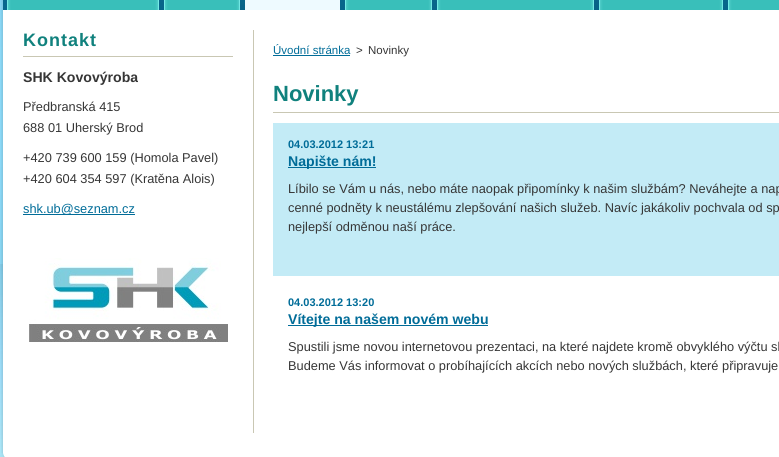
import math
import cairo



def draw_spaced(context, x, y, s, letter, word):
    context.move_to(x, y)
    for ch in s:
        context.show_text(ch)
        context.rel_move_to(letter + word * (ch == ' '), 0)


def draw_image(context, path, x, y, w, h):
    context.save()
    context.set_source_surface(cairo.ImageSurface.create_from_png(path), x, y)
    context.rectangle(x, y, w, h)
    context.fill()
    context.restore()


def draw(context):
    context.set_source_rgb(1, 1, 1)
    context.paint()
    draw_image(context, "images/1.png", 0, 264, 5, 193)
    draw_image(context, "images/2.png", 0, 0, 3, 264)
    draw_image(context, "images/3.png", 1, 0, 727, 10)
    draw_image(context, "images/4.png", 7, 0, 8, 10)
    draw_image(context, "images/5.png", 15, 0, 144, 10)
    draw_image(context, "images/6.png", 164, 0, 8, 10)
    draw_image(context, "images/7.png", 172, 0, 68, 10)
    context.set_source_rgb(238 / 255, 250 / 255, 1)
    context.rectangle(245, 0, 95, 10)
    context.fill()
    draw_image(context, "images/6.png", 345, 0, 8, 10)
    draw_image(context, "images/8.png", 353, 0, 79, 10)
    draw_image(context, "images/4.png", 437, 0, 8, 10)
    draw_image(context, "images/9.png", 445, 0, 149, 10)
    draw_image(context, "images/6.png", 599, 0, 8, 10)
    draw_image(context, "images/10.png", 607, 0, 116, 10)
    draw_image(context, "images/4.png", 728, 0, 8, 10)
    context.set_source_rgb(57 / 255, 191 / 255, 186 / 255)
    context.rectangle(736, 0, 43, 10)
    context.fill()
    draw_image(context, "images/11.png", 1, 453, 778, 4)
    draw_image(context, "images/12.png", 1, 10, 778, 443)
    context.set_source_rgb(201 / 255, 199 / 255, 179 / 255)
    context.rectangle(253, 30, 1, 403)
    context.fill()
    context.rectangle(23, 56, 210, 1)
    context.fill()
    context.set_source_rgb(0, 108 / 255, 152 / 255)
    context.rectangle(23, 214, 112, 1)
    context.fill()
    draw_image(context, "images/13.png", 29, 258, 199, 84)
    context.rectangle(273, 55, 77, 1)
    context.fill()
    context.set_source_rgb(201 / 255, 199 / 255, 179 / 255)
    context.rectangle(273, 112, 506, 1)
    context.fill()
    context.set_source_rgb(195 / 255, 235 / 255, 246 / 255)
    context.rectangle(273, 123, 506, 153)
    context.fill()
    context.set_source_rgb(0, 108 / 255, 152 / 255)
    context.rectangle(288, 167, 88, 1)
    context.fill()
    context.rectangle(288, 325, 200, 1)
    context.fill()
    context.select_font_face("Liberation Sans", cairo.FontSlant.NORMAL, cairo.FontWeight.BOLD)
    context.set_font_size(18)
    context.set_source_rgb(16 / 255, 129 / 255, 125 / 255)
    draw_spaced(context, 23, 46, "Kontakt", 1, 0)
    context.set_font_size(14.1)
    context.set_source_rgb(54 / 255, 54 / 255, 54 / 255)
    context.move_to(23, 82)
    context.show_text("SHK Kovovýroba")
    context.select_font_face("Liberation Sans")
    context.set_font_size(12.8)
    context.move_to(23, 111)
    context.show_text("Předbranská 415")
    context.move_to(23, 132)
    context.show_text("688 01 Uherský Brod")
    context.move_to(23, 162)
    context.show_text("+420 739 600 159 (Homola Pavel)")
    context.move_to(23, 183)
    context.show_text("+420 604 354 597 (Kratěna Alois)")
    context.set_source_rgb(0, 108 / 255, 152 / 255)
    context.move_to(23, 213)
    context.show_text("shk.ub@seznam.cz")
    context.set_font_size(11.5)
    context.move_to(273, 54)
    context.show_text("Úvodní stránka")
    context.set_source_rgb(54 / 255, 54 / 255, 54 / 255)
    context.move_to(356, 54)
    context.show_text(">")
    context.move_to(368, 54)
    context.show_text("Novinky")
    context.select_font_face("Liberation Sans", cairo.FontSlant.NORMAL, cairo.FontWeight.BOLD)
    context.set_font_size(22)
    context.set_source_rgb(16 / 255, 129 / 255, 125 / 255)
    context.move_to(273, 101)
    context.show_text("Novinky")
    context.set_font_size(11)
    context.set_source_rgb(0, 108 / 255, 152 / 255)
    context.move_to(288, 148)
    context.show_text("04.03.2012 13:21")
    context.set_font_size(14.1)
    context.move_to(288, 166)
    context.show_text("Napište nám!")
    context.select_font_face("Liberation Sans")
    context.set_font_size(12.8)
    context.set_source_rgb(54 / 255, 54 / 255, 54 / 255)
    context.move_to(288, 193)
    context.show_text("Líbilo se Vám u nás, nebo máte naopak připomínky k našim službám? Neváhejte a nap")
    context.move_to(288, 212)
    context.show_text("cenné podněty k neustálému zlepšování našich služeb. Navíc jakákoliv pochvala od sp")
    context.move_to(288, 231)
    context.show_text("nejlepší odměnou naší práce.")
    context.select_font_face("Liberation Sans", cairo.FontSlant.NORMAL, cairo.FontWeight.BOLD)
    context.set_font_size(11)
    context.set_source_rgb(0, 108 / 255, 152 / 255)
    context.move_to(288, 306)
    context.show_text("04.03.2012 13:20")
    context.set_font_size(14.1)
    context.move_to(288, 324)
    context.show_text("Vítejte na našem novém webu")
    context.select_font_face("Liberation Sans")
    context.set_font_size(12.8)
    context.set_source_rgb(54 / 255, 54 / 255, 54 / 255)
    context.move_to(288, 351)
    context.show_text("Spustili jsme novou internetovou prezentaci, na které najdete kromě obvyklého výčtu sl")
    context.move_to(288, 370)
    context.show_text("Budeme Vás informovat o probíhajících akcích nebo nových službách, které připravuje")


surface = cairo.ImageSurface(cairo.Format.RGB24, 779, 457)
context = cairo.Context(surface)
options = cairo.FontOptions()
options.set_hint_metrics(cairo.HintMetrics.OFF)
options.set_hint_style(cairo.HintStyle.NONE)
context.set_font_options(options)
context.set_miter_limit(4)
draw(context)
surface.write_to_png("out.png")
